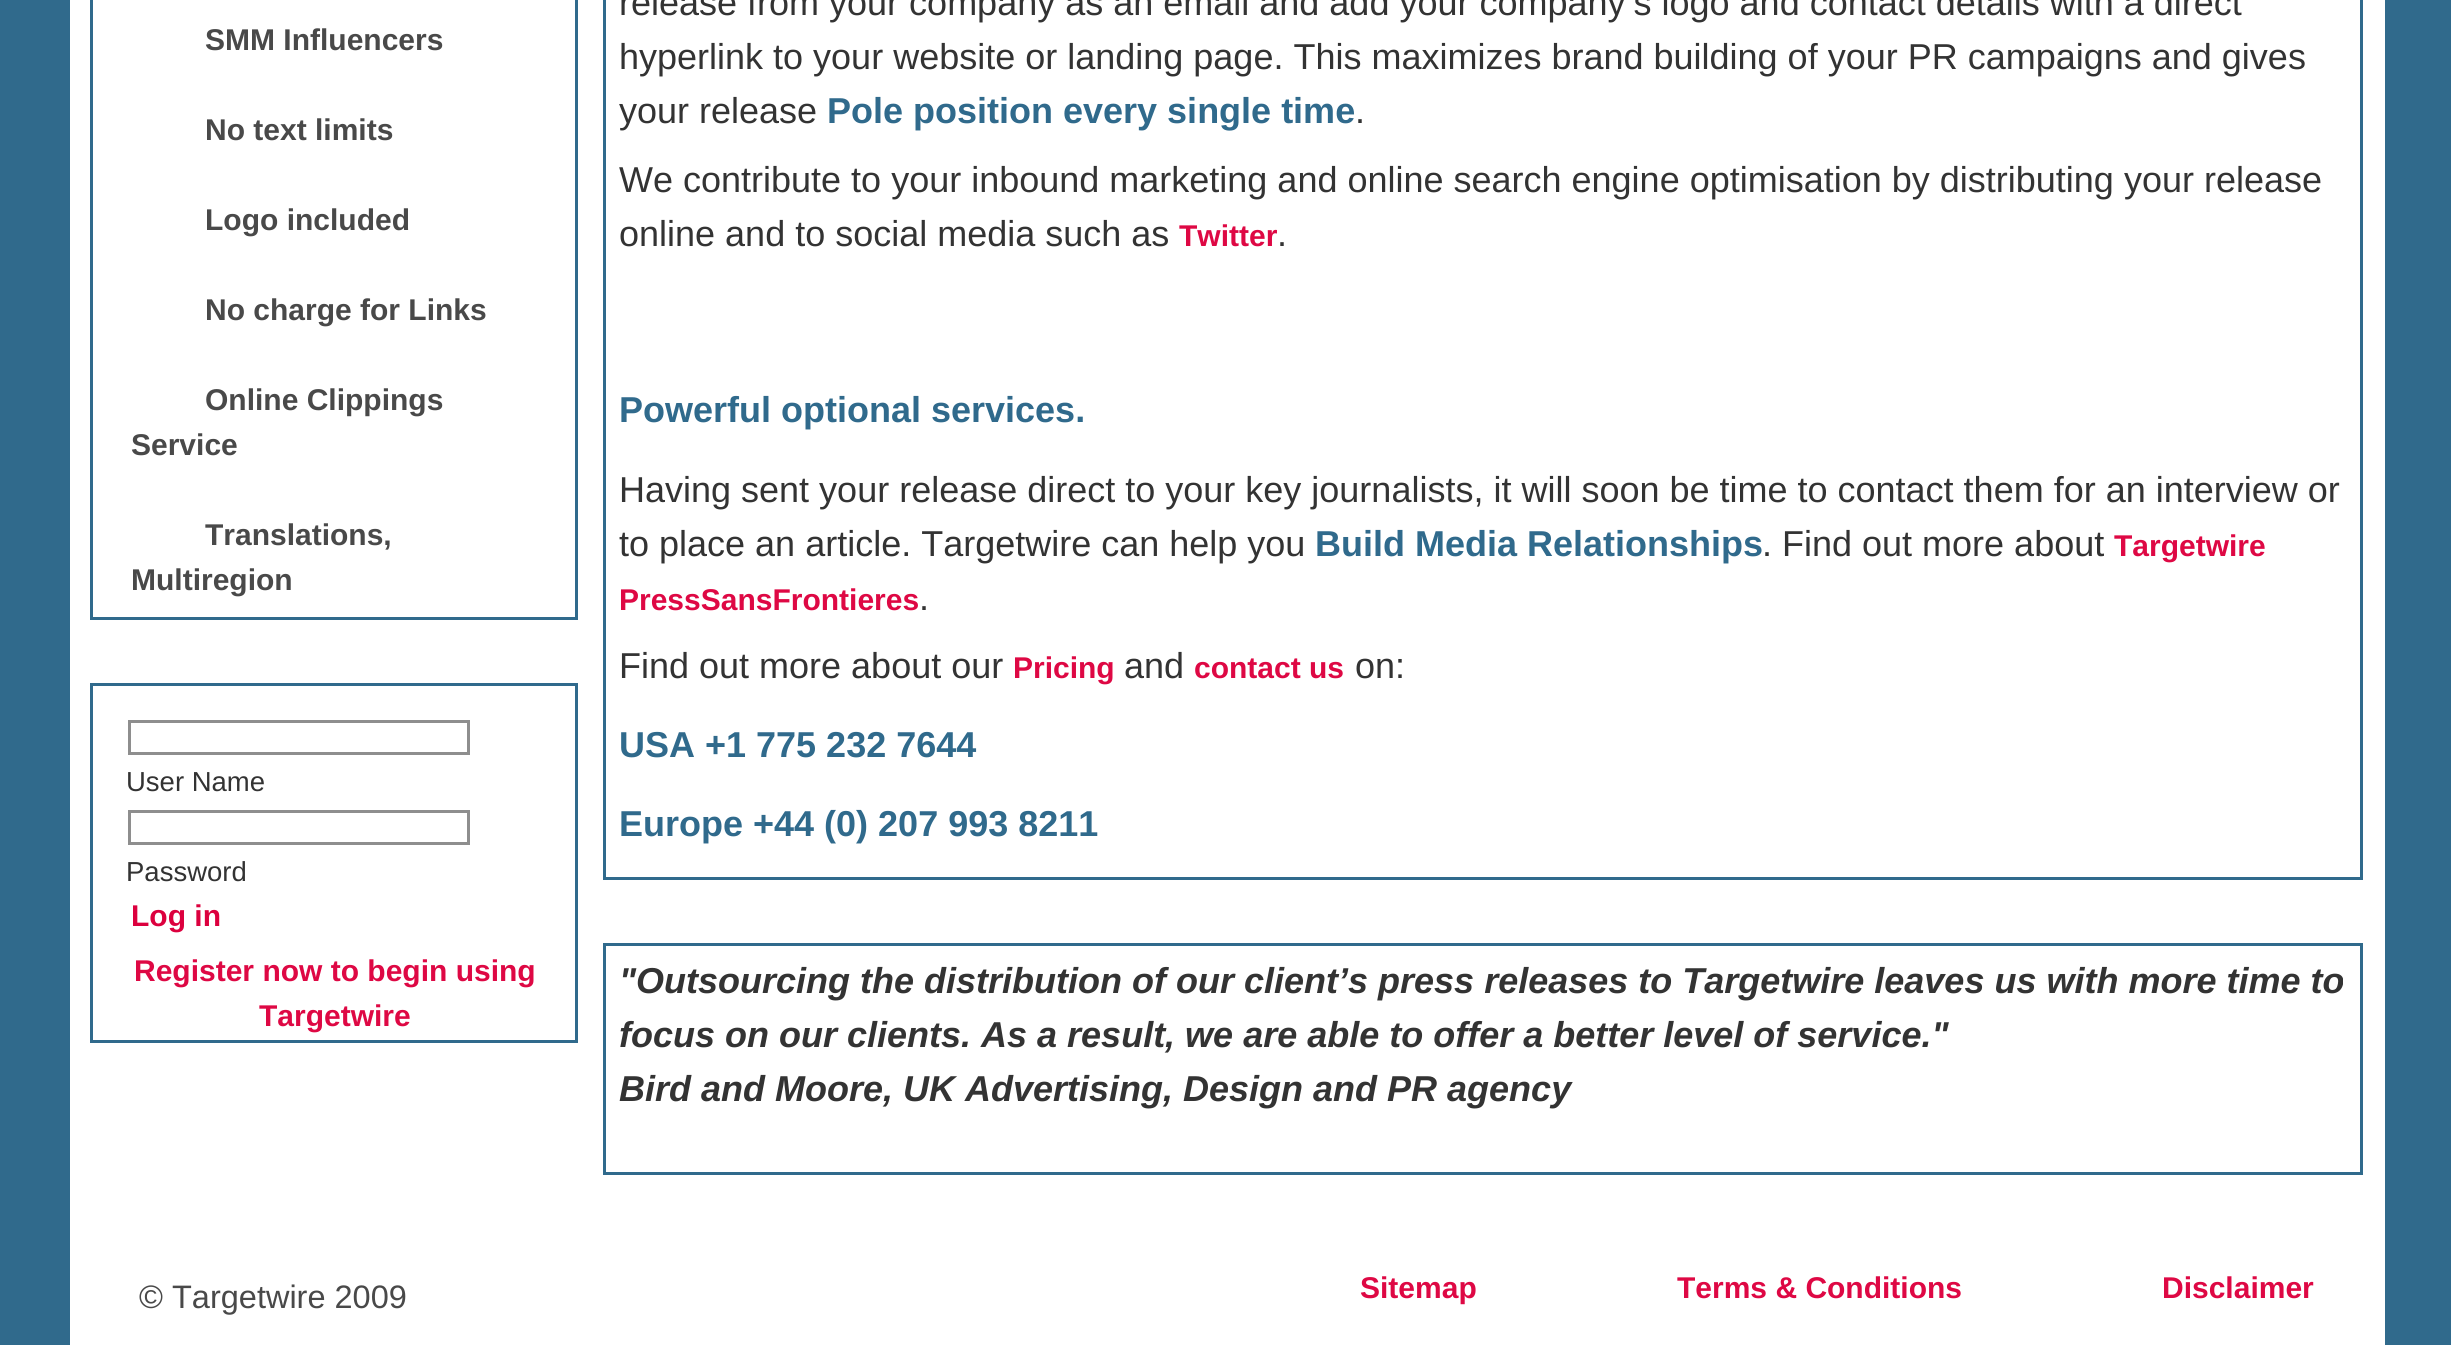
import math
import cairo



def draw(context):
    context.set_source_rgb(48 / 255, 106 / 255, 140 / 255)
    context.paint()
    context.set_source_rgb(1, 1, 1)
    context.rectangle(70, 0, 2315, 1345)
    context.fill()
    context.rectangle(91.5, -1.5, 485, 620)
    context.set_source_rgb(48 / 255, 106 / 255, 140 / 255)
    context.set_line_width(3)
    context.stroke()
    context.rectangle(91.5, 684.5, 485, 357)
    context.stroke()
    context.rectangle(129.5, 721.5, 339, 32)
    context.set_source_rgb(142 / 255, 142 / 255, 142 / 255)
    context.stroke()
    context.rectangle(129.5, 811.5, 339, 32)
    context.stroke()
    context.rectangle(604.5, -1.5, 1757, 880)
    context.set_source_rgb(48 / 255, 106 / 255, 140 / 255)
    context.stroke()
    context.rectangle(604.5, 944.5, 1757, 229)
    context.stroke()
    context.select_font_face("Liberation Sans", cairo.FontSlant.NORMAL, cairo.FontWeight.BOLD)
    context.set_font_size(30)
    context.set_source_rgb(73 / 255, 73 / 255, 73 / 255)
    context.move_to(205, 50)
    context.show_text("SMM Influencers")
    context.move_to(205, 140)
    context.show_text("No text limits")
    context.move_to(205, 230)
    context.show_text("Logo included")
    context.move_to(205, 320)
    context.show_text("No charge for Links")
    context.move_to(205, 410)
    context.show_text("Online Clippings")
    context.move_to(131, 455)
    context.show_text("Service")
    context.move_to(205, 545)
    context.show_text("Translations,")
    context.move_to(131, 590)
    context.show_text("Multiregion")
    context.select_font_face("Liberation Sans")
    context.set_font_size(27.5)
    context.set_source_rgb(51 / 255, 51 / 255, 51 / 255)
    context.move_to(126, 791)
    context.show_text("User Name")
    context.move_to(126, 881)
    context.show_text("Password")
    context.select_font_face("Liberation Sans", cairo.FontSlant.NORMAL, cairo.FontWeight.BOLD)
    context.set_font_size(30)
    context.set_source_rgb(220 / 255, 0, 62 / 255)
    context.move_to(131, 926)
    context.show_text("Log in")
    context.set_source_rgb(222 / 255, 8 / 255, 68 / 255)
    context.move_to(134, 981)
    context.show_text("Register now to begin using")
    context.move_to(259, 1026)
    context.show_text("Targetwire")
    context.select_font_face("Liberation Sans")
    context.set_font_size(36)
    context.set_source_rgb(51 / 255, 51 / 255, 51 / 255)
    context.move_to(619, 15)
    context.show_text("release from your company as an email and add your company’s logo and contact details with a direct")
    context.move_to(619, 69)
    context.show_text("hyperlink to your website or landing page. This maximizes brand building of your PR campaigns and gives")
    context.move_to(619, 123)
    context.show_text("your release")
    context.select_font_face("Liberation Sans", cairo.FontSlant.NORMAL, cairo.FontWeight.BOLD)
    context.set_source_rgb(48 / 255, 106 / 255, 140 / 255)
    context.move_to(827, 123)
    context.show_text("Pole position every single time")
    context.select_font_face("Liberation Sans")
    context.set_source_rgb(51 / 255, 51 / 255, 51 / 255)
    context.move_to(1355, 123)
    context.show_text(".")
    context.move_to(619, 192)
    context.show_text("We contribute to your inbound marketing and online search engine optimisation by distributing your release")
    context.move_to(619, 246)
    context.show_text("online and to social media such as")
    context.select_font_face("Liberation Sans", cairo.FontSlant.NORMAL, cairo.FontWeight.BOLD)
    context.set_font_size(30)
    context.set_source_rgb(222 / 255, 8 / 255, 68 / 255)
    context.move_to(1179, 246)
    context.show_text("Twitter")
    context.select_font_face("Liberation Sans")
    context.set_font_size(36)
    context.set_source_rgb(51 / 255, 51 / 255, 51 / 255)
    context.move_to(1277, 246)
    context.show_text(".")
    context.select_font_face("Liberation Sans", cairo.FontSlant.NORMAL, cairo.FontWeight.BOLD)
    context.set_source_rgb(48 / 255, 106 / 255, 140 / 255)
    context.move_to(619, 422)
    context.show_text("Powerful optional services.")
    context.select_font_face("Liberation Sans")
    context.set_source_rgb(51 / 255, 51 / 255, 51 / 255)
    context.move_to(619, 502)
    context.show_text("Having sent your release direct to your key journalists, it will soon be time to contact them for an interview or")
    context.move_to(619, 556)
    context.show_text("to place an article. Targetwire can help you")
    context.select_font_face("Liberation Sans", cairo.FontSlant.NORMAL, cairo.FontWeight.BOLD)
    context.set_source_rgb(48 / 255, 106 / 255, 140 / 255)
    context.move_to(1315, 556)
    context.show_text("Build Media Relationships")
    context.select_font_face("Liberation Sans")
    context.set_source_rgb(51 / 255, 51 / 255, 51 / 255)
    context.move_to(1762, 556)
    context.show_text(". Find out more about")
    context.select_font_face("Liberation Sans", cairo.FontSlant.NORMAL, cairo.FontWeight.BOLD)
    context.set_font_size(30)
    context.set_source_rgb(222 / 255, 8 / 255, 68 / 255)
    context.move_to(2114, 556)
    context.show_text("Targetwire")
    context.move_to(619, 610)
    context.show_text("PressSansFrontieres")
    context.select_font_face("Liberation Sans")
    context.set_font_size(36)
    context.set_source_rgb(51 / 255, 51 / 255, 51 / 255)
    context.move_to(919, 610)
    context.show_text(".")
    context.move_to(619, 678)
    context.show_text("Find out more about our")
    context.select_font_face("Liberation Sans", cairo.FontSlant.NORMAL, cairo.FontWeight.BOLD)
    context.set_font_size(30)
    context.set_source_rgb(222 / 255, 8 / 255, 68 / 255)
    context.move_to(1013, 678)
    context.show_text("Pricing")
    context.select_font_face("Liberation Sans")
    context.set_font_size(36)
    context.set_source_rgb(51 / 255, 51 / 255, 51 / 255)
    context.move_to(1124, 678)
    context.show_text("and")
    context.select_font_face("Liberation Sans", cairo.FontSlant.NORMAL, cairo.FontWeight.BOLD)
    context.set_font_size(30)
    context.set_source_rgb(222 / 255, 8 / 255, 68 / 255)
    context.move_to(1194, 678)
    context.show_text("contact us")
    context.select_font_face("Liberation Sans")
    context.set_font_size(36)
    context.set_source_rgb(51 / 255, 51 / 255, 51 / 255)
    context.move_to(1355, 678)
    context.show_text("on:")
    context.select_font_face("Liberation Sans", cairo.FontSlant.NORMAL, cairo.FontWeight.BOLD)
    context.set_source_rgb(48 / 255, 106 / 255, 140 / 255)
    context.move_to(619, 757)
    context.show_text("USA +1 775 232 7644")
    context.move_to(619, 836)
    context.show_text("Europe +44 (0) 207 993 8211")
    context.select_font_face("Liberation Sans", cairo.FontSlant.ITALIC, cairo.FontWeight.BOLD)
    context.set_source_rgb(51 / 255, 51 / 255, 51 / 255)
    context.move_to(619, 993)
    context.show_text("\"Outsourcing the distribution of our client’s press releases to Targetwire leaves us with more time to")
    context.move_to(619, 1047)
    context.show_text("focus on our clients. As a result, we are able to offer a better level of service.\"")
    context.move_to(619, 1101)
    context.show_text("Bird and Moore, UK Advertising, Design and PR agency")
    context.select_font_face("Liberation Sans")
    context.set_font_size(32.5)
    context.set_source_rgb(73 / 255, 73 / 255, 73 / 255)
    context.move_to(139, 1308)
    context.show_text("© Targetwire 2009")
    context.select_font_face("Liberation Sans", cairo.FontSlant.NORMAL, cairo.FontWeight.BOLD)
    context.set_font_size(30)
    context.set_source_rgb(222 / 255, 8 / 255, 68 / 255)
    context.move_to(1360, 1298)
    context.show_text("Sitemap")
    context.move_to(1677, 1298)
    context.show_text("Terms & Conditions")
    context.move_to(2162, 1298)
    context.show_text("Disclaimer")


surface = cairo.ImageSurface(cairo.Format.RGB24, 2451, 1345)
context = cairo.Context(surface)
options = cairo.FontOptions()
options.set_hint_metrics(cairo.HintMetrics.OFF)
options.set_hint_style(cairo.HintStyle.NONE)
context.set_font_options(options)
context.set_miter_limit(4)
draw(context)
surface.write_to_png("out.png")
